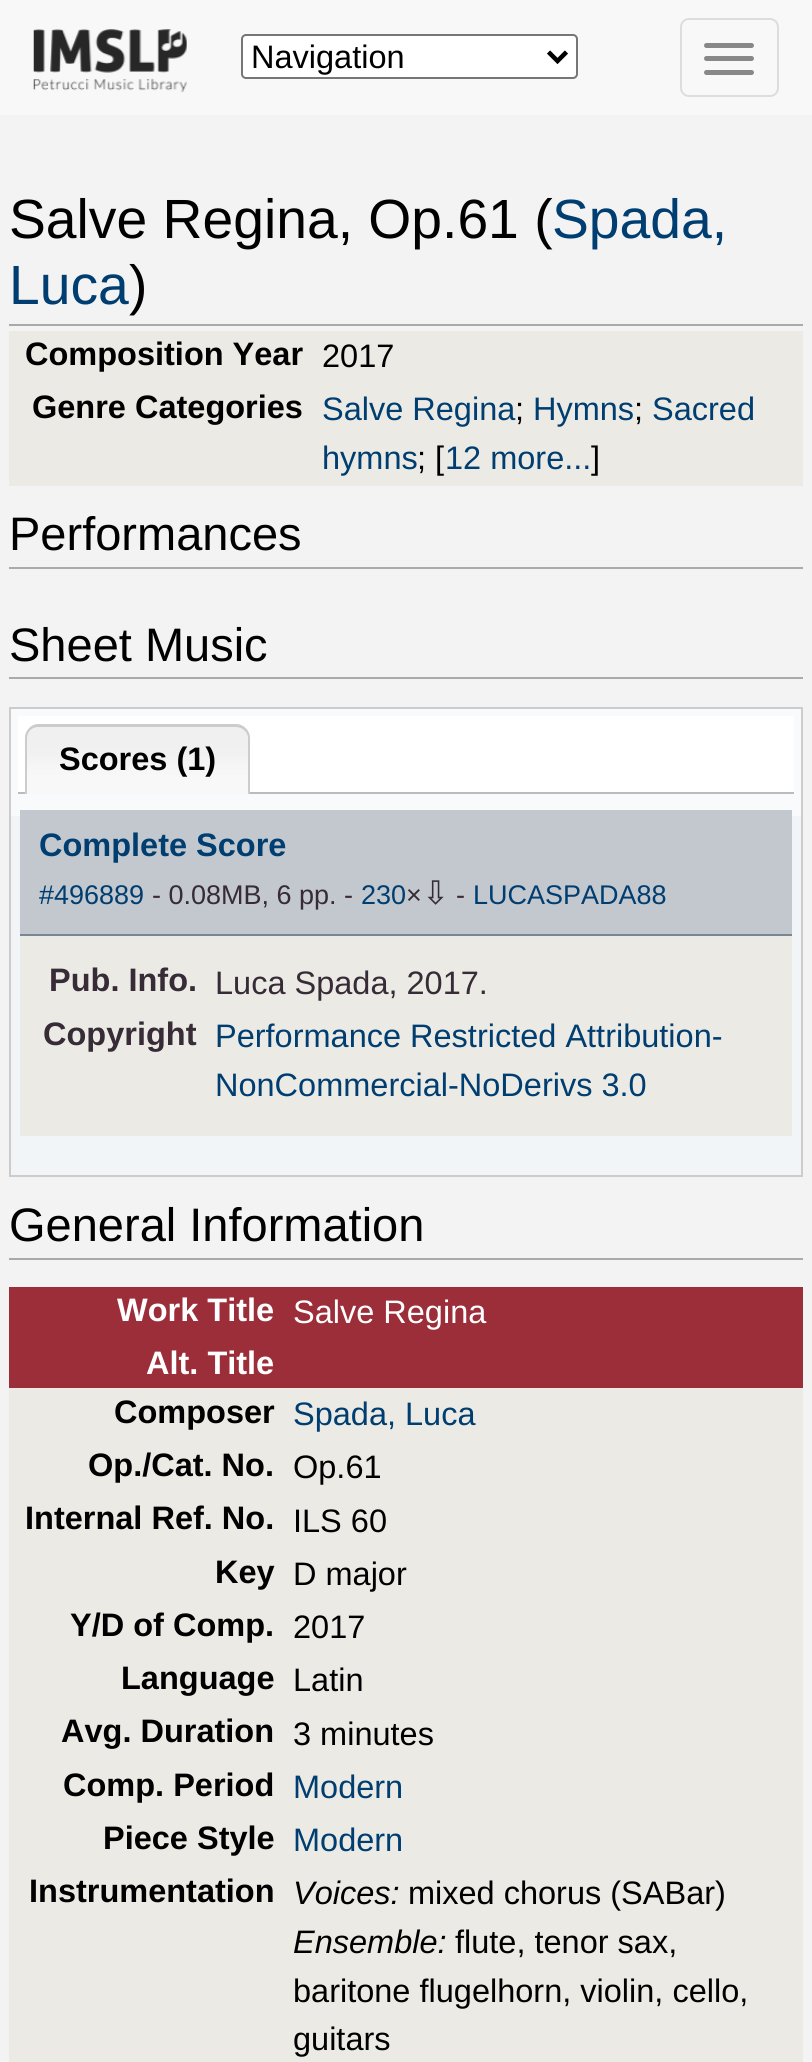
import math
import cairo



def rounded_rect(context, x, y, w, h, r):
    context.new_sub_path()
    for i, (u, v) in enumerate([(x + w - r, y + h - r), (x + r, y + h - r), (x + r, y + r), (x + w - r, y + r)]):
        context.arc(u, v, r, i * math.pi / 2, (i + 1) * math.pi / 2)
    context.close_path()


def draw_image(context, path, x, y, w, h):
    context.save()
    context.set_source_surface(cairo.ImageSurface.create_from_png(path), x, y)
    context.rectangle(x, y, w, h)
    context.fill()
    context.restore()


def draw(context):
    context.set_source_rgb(243 / 255, 243 / 255, 243 / 255)
    context.paint()
    context.set_source_rgb(248 / 255, 248 / 255, 248 / 255)
    context.rectangle(0, 0, 812, 115)
    context.fill()
    draw_image(context, "images/1.png", 33, 29, 154, 64)
    context.set_source_rgb(1, 1, 1)
    rounded_rect(context, 242, 35, 335, 43, 4)
    context.fill_preserve()
    context.set_source_rgb(118 / 255, 118 / 255, 118 / 255)
    context.stroke()
    context.new_path()
    context.move_to(548.5, 52)
    context.line_to(557.5, 61)
    context.line_to(566.5, 52)
    context.set_source_rgb(0, 0, 0)
    context.set_line_width(4.5)
    context.stroke()
    rounded_rect(context, 681, 19, 97, 77, 8)
    context.set_source_rgb(221 / 255, 221 / 255, 221 / 255)
    context.set_line_width(2)
    context.stroke()
    context.set_source_rgb(136 / 255, 136 / 255, 136 / 255)
    rounded_rect(context, 704, 43, 50, 5, 2.5)
    context.fill()
    rounded_rect(context, 704, 56, 50, 5, 2.5)
    context.fill()
    rounded_rect(context, 704, 70, 50, 5, 2.5)
    context.fill()
    context.set_source_rgb(170 / 255, 170 / 255, 170 / 255)
    context.rectangle(9, 324, 794, 2)
    context.fill()
    context.set_source_rgb(235 / 255, 234 / 255, 228 / 255)
    context.rectangle(9, 331, 794, 155)
    context.fill()
    context.set_source_rgb(170 / 255, 170 / 255, 170 / 255)
    context.rectangle(9, 567, 794, 2)
    context.fill()
    context.rectangle(9, 677, 794, 2)
    context.fill()
    context.set_source_rgb(242 / 255, 245 / 255, 247 / 255)
    context.rectangle(11, 816, 790, 359)
    context.fill()
    context.set_source_rgb(249 / 255, 250 / 255, 251 / 255)
    context.rectangle(11, 709, 790, 107)
    context.fill()
    context.rectangle(10, 708, 792, 468)
    context.set_source_rgb(204 / 255, 204 / 255, 204 / 255)
    context.stroke()
    context.set_source_rgb(1, 1, 1)
    context.rectangle(18, 716, 776, 76)
    context.fill()
    context.set_source_rgb(187 / 255, 187 / 255, 187 / 255)
    context.rectangle(18, 792, 776, 2)
    context.fill()
    draw_image(context, "images/2.png", 24, 724, 226, 70)
    context.set_source_rgb(204 / 255, 204 / 255, 204 / 255)
    context.set_fill_rule(cairo.FillRule.EVEN_ODD)
    context.new_path()
    context.move_to(38, 724)
    context.line_to(236, 724)
    context.curve_to(244, 724, 250, 731, 250, 738)
    context.line_to(250, 794)
    context.line_to(25, 794)
    context.line_to(25, 738)
    context.curve_to(25, 731, 31, 724, 38, 724)
    context.close_path()
    context.move_to(38, 727)
    context.line_to(236, 727)
    context.curve_to(242, 727, 248, 732, 248, 738)
    context.line_to(248, 794)
    context.line_to(27, 794)
    context.line_to(27, 738)
    context.curve_to(27, 732, 32, 727, 38, 727)
    context.close_path()
    context.fill()
    context.set_source_rgb(194 / 255, 200 / 255, 205 / 255)
    context.rectangle(20, 810, 772, 124)
    context.fill()
    context.set_source_rgb(120 / 255, 135 / 255, 145 / 255)
    context.rectangle(20, 934, 772, 2)
    context.fill()
    context.set_source_rgb(235 / 255, 234 / 255, 228 / 255)
    context.rectangle(20, 936, 772, 200)
    context.fill()
    context.set_source_rgb(170 / 255, 170 / 255, 170 / 255)
    context.rectangle(9, 1258, 794, 2)
    context.fill()
    context.set_source_rgb(235 / 255, 234 / 255, 228 / 255)
    context.rectangle(9, 1388, 794, 674)
    context.fill()
    context.set_source_rgb(156 / 255, 46 / 255, 58 / 255)
    context.rectangle(9, 1287, 794, 54)
    context.fill()
    context.rectangle(9, 1341, 794, 47)
    context.fill()
    context.select_font_face("Liberation Sans")
    context.set_font_size(32.5)
    context.set_source_rgb(0, 0, 0)
    context.move_to(251, 68)
    context.show_text("Navigation")
    context.set_font_size(55.25)
    context.move_to(9, 238)
    context.show_text("Salve Regina, Op.61 (")
    context.set_source_rgb(0, 61 / 255, 112 / 255)
    context.move_to(552, 238)
    context.show_text("Spada,")
    context.move_to(9, 304)
    context.show_text("Luca")
    context.set_source_rgb(0, 0, 0)
    context.move_to(129, 304)
    context.show_text(")")
    context.select_font_face("Liberation Sans", cairo.FontSlant.NORMAL, cairo.FontWeight.BOLD)
    context.set_font_size(32.5)
    context.move_to(25, 365)
    context.show_text("Composition Year")
    context.select_font_face("Liberation Sans")
    context.move_to(322, 367)
    context.show_text("2017")
    context.select_font_face("Liberation Sans", cairo.FontSlant.NORMAL, cairo.FontWeight.BOLD)
    context.move_to(32, 418)
    context.show_text("Genre Categories")
    context.select_font_face("Liberation Sans")
    context.set_source_rgb(0, 61 / 255, 112 / 255)
    context.move_to(322, 420)
    context.show_text("Salve Regina")
    context.set_source_rgb(0, 0, 0)
    context.move_to(515, 420)
    context.show_text(";")
    context.set_source_rgb(0, 61 / 255, 112 / 255)
    context.move_to(533, 420)
    context.show_text("Hymns")
    context.set_source_rgb(0, 0, 0)
    context.move_to(634, 420)
    context.show_text(";")
    context.set_source_rgb(0, 61 / 255, 112 / 255)
    context.move_to(652, 420)
    context.show_text("Sacred")
    context.move_to(322, 469)
    context.show_text("hymns")
    context.set_source_rgb(0, 0, 0)
    context.move_to(417, 469)
    context.show_text("; [")
    context.set_source_rgb(0, 61 / 255, 112 / 255)
    context.move_to(445, 469)
    context.show_text("12 more...")
    context.set_source_rgb(0, 0, 0)
    context.move_to(591, 469)
    context.show_text("]")
    context.set_font_size(47)
    context.move_to(9, 550)
    context.show_text("Performances")
    context.move_to(9, 661)
    context.show_text("Sheet Music")
    context.select_font_face("Liberation Sans", cairo.FontSlant.NORMAL, cairo.FontWeight.BOLD)
    context.set_font_size(32.5)
    context.move_to(59, 770)
    context.show_text("Scores (1)")
    context.set_source_rgb(0, 61 / 255, 112 / 255)
    context.move_to(39, 856)
    context.show_text("Complete Score")
    context.select_font_face("Liberation Sans")
    context.set_font_size(27)
    context.move_to(39, 904)
    context.show_text("#496889")
    context.set_source_rgb(54 / 255, 43 / 255, 54 / 255)
    context.move_to(152, 904)
    context.show_text("- 0.08MB, 6 pp. -")
    context.set_source_rgb(0, 61 / 255, 112 / 255)
    context.move_to(361, 904)
    context.show_text("230")
    context.set_source_rgb(54 / 255, 43 / 255, 54 / 255)
    context.move_to(406, 904)
    context.show_text("×")
    context.select_font_face("DejaVu Sans")
    context.set_font_size(32.5)
    context.move_to(422, 904)
    context.show_text("⇩")
    context.select_font_face("Liberation Sans")
    context.set_font_size(27)
    context.move_to(456, 904)
    context.show_text("-")
    context.set_source_rgb(0, 61 / 255, 112 / 255)
    context.move_to(473, 904)
    context.show_text("LUCASPADA88")
    context.select_font_face("Liberation Sans", cairo.FontSlant.NORMAL, cairo.FontWeight.BOLD)
    context.set_font_size(32.5)
    context.set_source_rgb(54 / 255, 43 / 255, 54 / 255)
    context.move_to(49, 991)
    context.show_text("Pub. Info.")
    context.select_font_face("Liberation Sans")
    context.move_to(215, 994)
    context.show_text("Luca Spada, 2017.")
    context.select_font_face("Liberation Sans", cairo.FontSlant.NORMAL, cairo.FontWeight.BOLD)
    context.move_to(43, 1045)
    context.show_text("Copyright")
    context.select_font_face("Liberation Sans")
    context.set_source_rgb(0, 61 / 255, 112 / 255)
    context.move_to(215, 1047)
    context.show_text("Performance Restricted Attribution-")
    context.move_to(215, 1096)
    context.show_text("NonCommercial-NoDerivs 3.0")
    context.set_font_size(47)
    context.set_source_rgb(0, 0, 0)
    context.move_to(9, 1241)
    context.show_text("General Information")
    context.select_font_face("Liberation Sans", cairo.FontSlant.NORMAL, cairo.FontWeight.BOLD)
    context.set_font_size(32.5)
    context.set_source_rgb(1, 1, 1)
    context.move_to(117, 1321)
    context.show_text("Work Title")
    context.select_font_face("Liberation Sans")
    context.move_to(293, 1323)
    context.show_text("Salve Regina")
    context.select_font_face("Liberation Sans", cairo.FontSlant.NORMAL, cairo.FontWeight.BOLD)
    context.move_to(146, 1374)
    context.show_text("Alt. Title")
    context.set_source_rgb(0, 0, 0)
    context.move_to(114, 1423)
    context.show_text("Composer")
    context.select_font_face("Liberation Sans")
    context.set_source_rgb(0, 61 / 255, 112 / 255)
    context.move_to(293, 1425)
    context.show_text("Spada, Luca")
    context.select_font_face("Liberation Sans", cairo.FontSlant.NORMAL, cairo.FontWeight.BOLD)
    context.set_source_rgb(0, 0, 0)
    context.move_to(88, 1476)
    context.show_text("Op./Cat. No.")
    context.select_font_face("Liberation Sans")
    context.move_to(293, 1478)
    context.show_text("Op.61")
    context.select_font_face("Liberation Sans", cairo.FontSlant.NORMAL, cairo.FontWeight.BOLD)
    context.move_to(25, 1529)
    context.show_text("Internal Ref. No.")
    context.select_font_face("Liberation Sans")
    context.move_to(293, 1532)
    context.show_text("ILS 60")
    context.select_font_face("Liberation Sans", cairo.FontSlant.NORMAL, cairo.FontWeight.BOLD)
    context.move_to(215, 1583)
    context.show_text("Key")
    context.select_font_face("Liberation Sans")
    context.move_to(293, 1585)
    context.show_text("D major")
    context.select_font_face("Liberation Sans", cairo.FontSlant.NORMAL, cairo.FontWeight.BOLD)
    context.move_to(70, 1636)
    context.show_text("Y/D of Comp.")
    context.select_font_face("Liberation Sans")
    context.move_to(293, 1638)
    context.show_text("2017")
    context.select_font_face("Liberation Sans", cairo.FontSlant.NORMAL, cairo.FontWeight.BOLD)
    context.move_to(121, 1689)
    context.show_text("Language")
    context.select_font_face("Liberation Sans")
    context.move_to(293, 1691)
    context.show_text("Latin")
    context.select_font_face("Liberation Sans", cairo.FontSlant.NORMAL, cairo.FontWeight.BOLD)
    context.move_to(61, 1742)
    context.show_text("Avg. Duration")
    context.select_font_face("Liberation Sans")
    context.move_to(293, 1745)
    context.show_text("3 minutes")
    context.select_font_face("Liberation Sans", cairo.FontSlant.NORMAL, cairo.FontWeight.BOLD)
    context.move_to(63, 1796)
    context.show_text("Comp. Period")
    context.select_font_face("Liberation Sans")
    context.set_source_rgb(0, 61 / 255, 112 / 255)
    context.move_to(293, 1798)
    context.show_text("Modern")
    context.select_font_face("Liberation Sans", cairo.FontSlant.NORMAL, cairo.FontWeight.BOLD)
    context.set_source_rgb(0, 0, 0)
    context.move_to(103, 1849)
    context.show_text("Piece Style")
    context.select_font_face("Liberation Sans")
    context.set_source_rgb(0, 61 / 255, 112 / 255)
    context.move_to(293, 1851)
    context.show_text("Modern")
    context.select_font_face("Liberation Sans", cairo.FontSlant.NORMAL, cairo.FontWeight.BOLD)
    context.set_source_rgb(0, 0, 0)
    context.move_to(29, 1902)
    context.show_text("Instrumentation")
    context.select_font_face("Liberation Sans", cairo.FontSlant.ITALIC)
    context.move_to(293, 1904)
    context.show_text("Voices:")
    context.select_font_face("Liberation Sans")
    context.move_to(408, 1904)
    context.show_text("mixed chorus (SABar)")
    context.select_font_face("Liberation Sans", cairo.FontSlant.ITALIC)
    context.move_to(293, 1953)
    context.show_text("Ensemble:")
    context.select_font_face("Liberation Sans")
    context.move_to(455, 1953)
    context.show_text("flute, tenor sax,")
    context.move_to(293, 2002)
    context.show_text("baritone flugelhorn, violin, cello,")
    context.move_to(293, 2050)
    context.show_text("guitars")


surface = cairo.ImageSurface(cairo.Format.RGB24, 812, 2062)
context = cairo.Context(surface)
options = cairo.FontOptions()
options.set_hint_metrics(cairo.HintMetrics.OFF)
options.set_hint_style(cairo.HintStyle.NONE)
context.set_font_options(options)
context.set_miter_limit(4)
draw(context)
surface.write_to_png("out.png")
